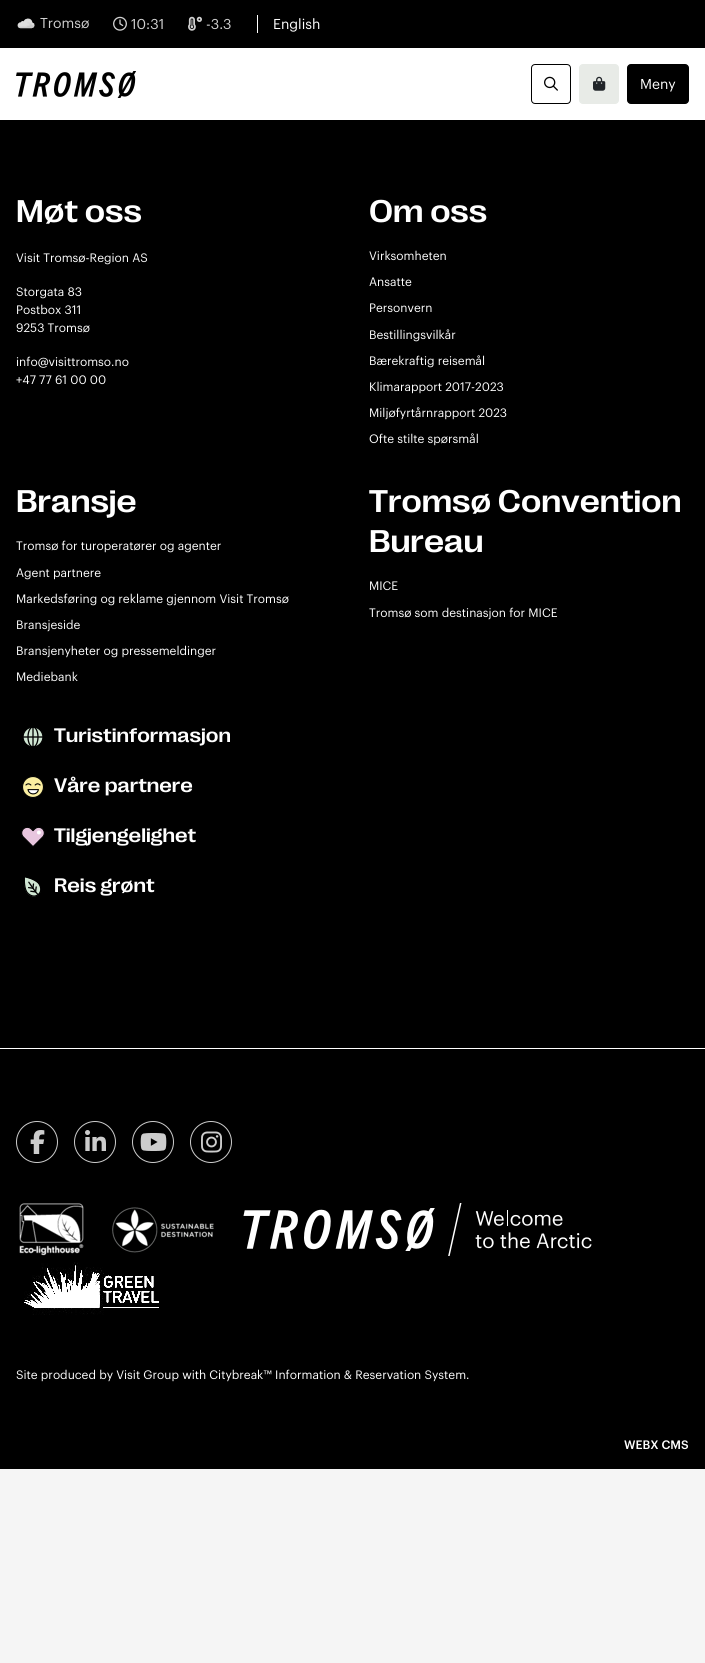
import math
import cairo



def rounded_rect(context, x, y, w, h, r):
    context.new_sub_path()
    for i, (u, v) in enumerate([(x + w - r, y + h - r), (x + r, y + h - r), (x + r, y + r), (x + w - r, y + r)]):
        context.arc(u, v, r, i * math.pi / 2, (i + 1) * math.pi / 2)
    context.close_path()


def draw_image(context, path, x, y, w, h):
    context.save()
    context.set_source_surface(cairo.ImageSurface.create_from_png(path), x, y)
    context.rectangle(x, y, w, h)
    context.fill()
    context.restore()


def draw(context):
    context.set_source_rgb(245 / 255, 245 / 255, 245 / 255)
    context.paint()
    context.set_source_rgb(1, 1, 1)
    context.rectangle(0, 48, 705, 72)
    context.fill()
    context.set_source_rgb(0, 0, 0)
    context.rectangle(0, 0, 705, 48)
    context.fill()
    draw_image(context, "images/1.png", 17, 18, 18, 11)
    draw_image(context, "images/2.png", 113, 16, 14, 15)
    draw_image(context, "images/3.png", 188, 16, 14, 15)
    context.set_source_rgb(1, 1, 1)
    context.rectangle(257, 15, 1, 18)
    context.fill()
    draw_image(context, "images/4.png", 16, 71, 120, 27)
    rounded_rect(context, 531.5, 64.5, 39, 39, 3.5)
    context.set_source_rgb(0, 0, 0)
    context.set_line_width(1)
    context.stroke()
    draw_image(context, "images/5.png", 544, 76, 14, 15)
    context.set_source_rgb(232 / 255, 235 / 255, 231 / 255)
    rounded_rect(context, 579.5, 64.5, 39, 39, 3.5)
    context.fill_preserve()
    context.stroke()
    draw_image(context, "images/6.png", 593, 76, 13, 15)
    context.set_source_rgb(0, 0, 0)
    rounded_rect(context, 627.5, 64.5, 61, 39, 3.5)
    context.fill_preserve()
    context.stroke()
    context.rectangle(0, 120, 705, 1349)
    context.fill()
    draw_image(context, "images/7.png", 23, 727, 20, 20)
    draw_image(context, "images/8.png", 22, 776, 22, 22)
    draw_image(context, "images/9.png", 21, 827, 24, 20)
    draw_image(context, "images/10.png", 24, 877, 17, 20)
    context.set_source_rgb(1, 1, 1)
    context.rectangle(0, 1048, 705, 1)
    context.fill()
    context.arc(37, 1142, 20.5, 0, 2 * math.pi)
    context.set_source_rgb(204 / 255, 204 / 255, 204 / 255)
    context.stroke()
    draw_image(context, "images/11.png", 30, 1130, 15, 24)
    context.arc(95, 1142, 20.5, 0, 2 * math.pi)
    context.stroke()
    draw_image(context, "images/12.png", 85, 1130, 21, 21)
    context.arc(153, 1142, 20.5, 0, 2 * math.pi)
    context.stroke()
    draw_image(context, "images/13.png", 140, 1133, 27, 18)
    context.arc(211, 1142, 20.5, 0, 2 * math.pi)
    context.stroke()
    draw_image(context, "images/14.png", 201, 1131, 21, 22)
    draw_image(context, "images/15.png", 19, 1203, 65, 53)
    draw_image(context, "images/16.png", 112, 1207, 102, 46)
    draw_image(context, "images/17.png", 243, 1203, 349, 53)
    draw_image(context, "images/18.png", 24, 1262, 135, 53)
    context.select_font_face("Graphik")
    context.set_font_size(14)
    context.set_source_rgb(209 / 255, 209 / 255, 209 / 255)
    context.move_to(40, 28)
    context.show_text("Tromsø")
    context.move_to(131, 29)
    context.show_text("10:31")
    context.move_to(206, 29)
    context.show_text("-3.3")
    context.set_source_rgb(1, 1, 1)
    context.move_to(273, 29)
    context.show_text("English")
    context.move_to(640, 89)
    context.show_text("Meny")
    context.select_font_face("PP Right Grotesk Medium")
    context.set_font_size(32)
    context.move_to(16, 222)
    context.show_text("Møt oss")
    context.select_font_face("Graphik")
    context.set_font_size(12)
    context.move_to(16, 262)
    context.show_text("Visit Tromsø-Region AS")
    context.move_to(16, 296)
    context.show_text("Storgata 83")
    context.move_to(16, 314)
    context.show_text("Postbox 311")
    context.move_to(16, 332)
    context.show_text("9253 Tromsø")
    context.move_to(16, 366)
    context.show_text("info@visittromso.no")
    context.move_to(16, 384)
    context.show_text("+47 77 61 00 00")
    context.select_font_face("PP Right Grotesk Medium")
    context.set_font_size(32)
    context.move_to(369, 222)
    context.show_text("Om oss")
    context.select_font_face("Graphik")
    context.set_font_size(12)
    context.move_to(369, 260)
    context.show_text("Virksomheten")
    context.move_to(369, 286)
    context.show_text("Ansatte")
    context.move_to(369, 312)
    context.show_text("Personvern")
    context.move_to(369, 339)
    context.show_text("Bestillingsvilkår")
    context.move_to(369, 365)
    context.show_text("Bærekraftig reisemål")
    context.move_to(369, 391)
    context.show_text("Klimarapport 2017-2023")
    context.move_to(369, 417)
    context.show_text("Miljøfyrtårnrapport 2023")
    context.move_to(369, 443)
    context.show_text("Ofte stilte spørsmål")
    context.select_font_face("PP Right Grotesk Medium")
    context.set_font_size(32)
    context.move_to(16, 512)
    context.show_text("Bransje")
    context.select_font_face("Graphik")
    context.set_font_size(12)
    context.move_to(16, 550)
    context.show_text("Tromsø for turoperatører og agenter")
    context.move_to(16, 577)
    context.show_text("Agent partnere")
    context.move_to(16, 603)
    context.show_text("Markedsføring og reklame gjennom Visit Tromsø")
    context.move_to(16, 629)
    context.show_text("Bransjeside")
    context.move_to(16, 655)
    context.show_text("Bransjenyheter og pressemeldinger")
    context.move_to(16, 681)
    context.show_text("Mediebank")
    context.select_font_face("PP Right Grotesk Medium")
    context.set_font_size(32)
    context.move_to(369, 512)
    context.show_text("Tromsø Convention")
    context.move_to(369, 552)
    context.show_text("Bureau")
    context.select_font_face("Graphik")
    context.set_font_size(12)
    context.move_to(369, 590)
    context.show_text("MICE")
    context.move_to(369, 617)
    context.show_text("Tromsø som destinasjon for MICE")
    context.select_font_face("PP Right Grotesk Medium")
    context.set_font_size(20)
    context.move_to(54, 742)
    context.show_text("Turistinformasjon")
    context.move_to(54, 792)
    context.show_text("Våre partnere")
    context.move_to(54, 842)
    context.show_text("Tilgjengelighet")
    context.move_to(54, 892)
    context.show_text("Reis grønt")
    context.select_font_face("Graphik")
    context.set_font_size(12)
    context.move_to(16, 1379)
    context.show_text("Site produced by Visit Group with Citybreak™ Information & Reservation System.")
    context.select_font_face("Graphik Medium")
    context.move_to(624, 1449)
    context.show_text("WEBX CMS")


surface = cairo.ImageSurface(cairo.Format.RGB24, 705, 1663)
context = cairo.Context(surface)
options = cairo.FontOptions()
options.set_hint_metrics(cairo.HintMetrics.OFF)
options.set_hint_style(cairo.HintStyle.NONE)
context.set_font_options(options)
context.set_miter_limit(4)
draw(context)
surface.write_to_png("out.png")
